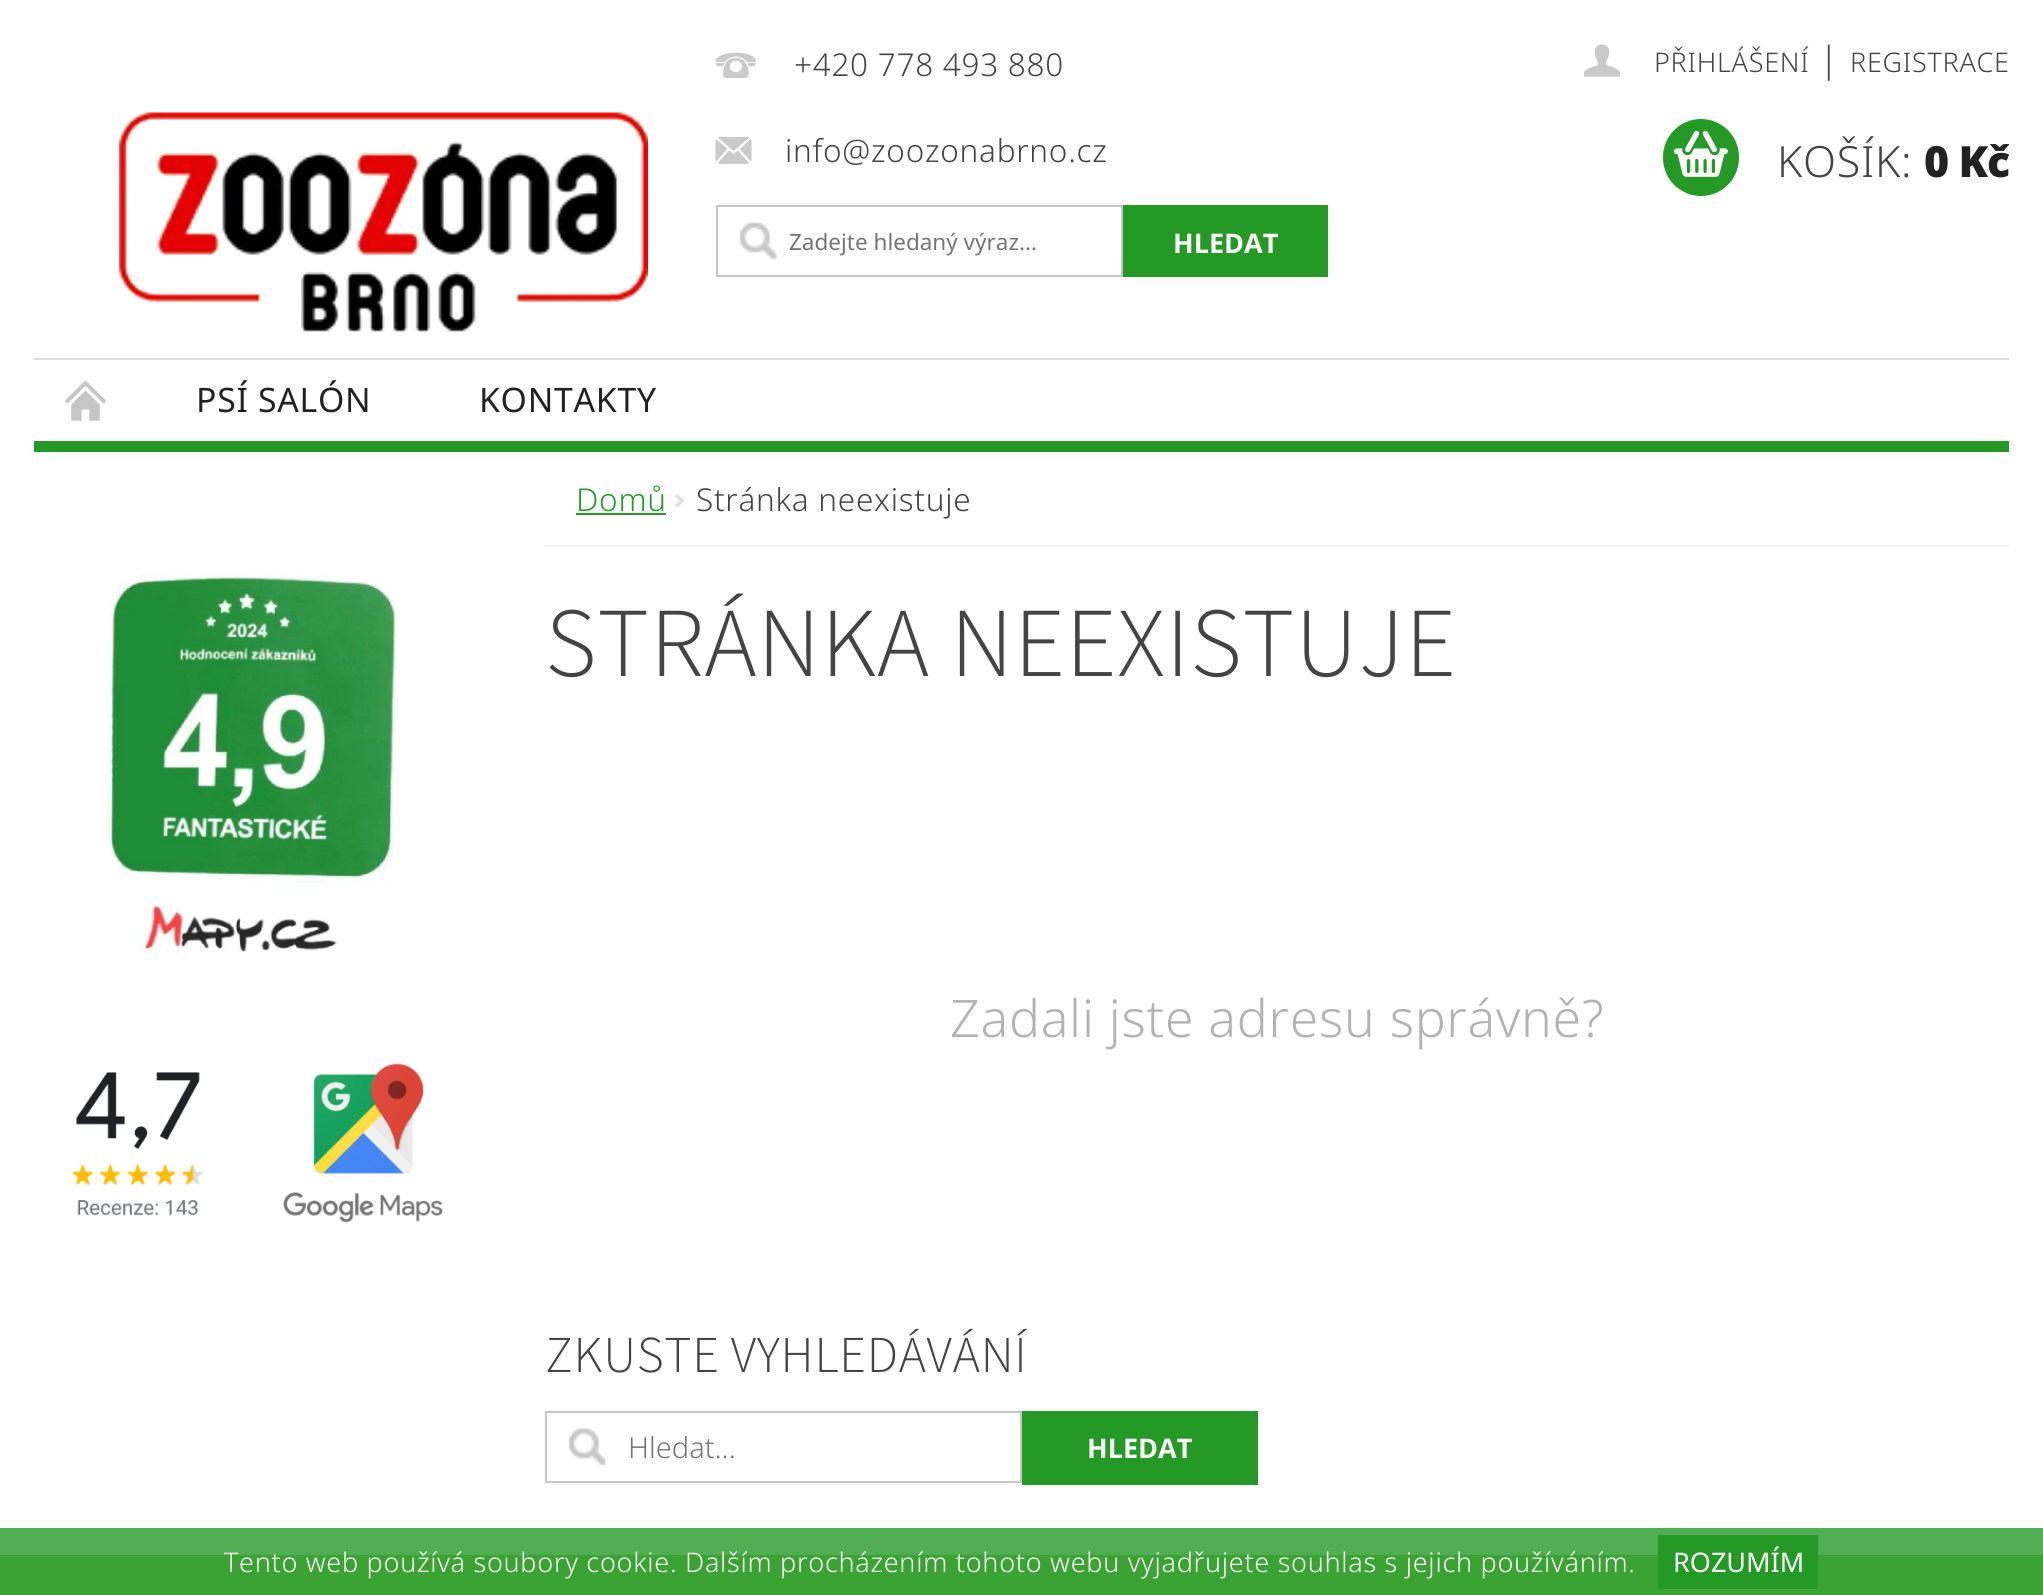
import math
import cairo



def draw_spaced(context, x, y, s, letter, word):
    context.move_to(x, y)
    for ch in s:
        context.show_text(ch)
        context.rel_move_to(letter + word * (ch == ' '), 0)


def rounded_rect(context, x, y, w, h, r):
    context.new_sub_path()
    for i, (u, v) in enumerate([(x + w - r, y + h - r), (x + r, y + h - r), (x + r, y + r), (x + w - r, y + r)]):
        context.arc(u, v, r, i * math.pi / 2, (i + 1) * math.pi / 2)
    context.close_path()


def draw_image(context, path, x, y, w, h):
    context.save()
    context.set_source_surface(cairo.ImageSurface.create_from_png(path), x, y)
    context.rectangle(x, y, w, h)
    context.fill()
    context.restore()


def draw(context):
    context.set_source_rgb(59 / 255, 162 / 255, 52 / 255)
    context.paint()
    context.set_source_rgb(1, 1, 1)
    context.rectangle(0, 0, 2043, 1528)
    context.fill()
    context.set_source_rgb(81 / 255, 173 / 255, 81 / 255)
    context.rectangle(0, 1528, 2043, 27)
    context.fill()
    context.set_source_rgb(37 / 255, 153 / 255, 37 / 255)
    context.rectangle(34, 441, 1975, 11)
    context.fill()
    draw_image(context, "images/1.png", 119, 112, 529, 220)
    draw_image(context, "images/2.png", 715, 52, 41, 26)
    draw_image(context, "images/3.png", 715, 137, 37, 27)
    draw_image(context, "images/4.png", 740, 222, 37, 38)
    context.rectangle(717, 206, 405, 70)
    context.set_source_rgb(198 / 255, 198 / 255, 198 / 255)
    context.stroke()
    context.set_source_rgb(37 / 255, 153 / 255, 37 / 255)
    context.rectangle(1123, 205, 205, 72)
    context.fill()
    draw_image(context, "images/5.png", 1584, 44, 36, 33)
    rounded_rect(context, 1663, 119, 76, 77, 38)
    context.fill()
    draw_image(context, "images/6.png", 1674, 130, 54, 47)
    context.set_source_rgb(224 / 255, 224 / 255, 224 / 255)
    context.rectangle(34, 358, 1975, 2)
    context.fill()
    draw_image(context, "images/7.png", 65, 381, 41, 40)
    draw_image(context, "images/8.png", 109, 573, 289, 380)
    draw_image(context, "images/9.png", 71, 1063, 372, 160)
    context.set_source_rgb(242 / 255, 242 / 255, 242 / 255)
    context.rectangle(545, 545, 1464, 2)
    context.fill()
    context.set_source_rgb(37 / 255, 153 / 255, 37 / 255)
    context.rectangle(576, 513, 90, 2)
    context.fill()
    draw_image(context, "images/10.png", 675, 494, 10, 13)
    draw_image(context, "images/11.png", 569, 1428, 37, 38)
    context.rectangle(546, 1412, 475, 70)
    context.set_source_rgb(198 / 255, 198 / 255, 198 / 255)
    context.stroke()
    context.set_source_rgb(37 / 255, 153 / 255, 37 / 255)
    context.rectangle(1022, 1411, 236, 74)
    context.fill()
    context.rectangle(1658, 1535, 160, 54)
    context.fill()
    context.select_font_face("Noto Sans Light")
    context.set_font_size(31.5)
    context.set_source_rgb(68 / 255, 68 / 255, 68 / 255)
    draw_spaced(context, 794, 76, "+420 778 493 880", 0.72, 0)
    draw_spaced(context, 785, 162, "info@zoozonabrno.cz", 0.72, 0)
    context.select_font_face("Noto Sans")
    context.set_font_size(22.5)
    context.set_source_rgb(117 / 255, 117 / 255, 117 / 255)
    context.move_to(789, 250)
    context.show_text("Zadejte hledaný výraz...")
    context.select_font_face("Noto Sans", cairo.FontSlant.NORMAL, cairo.FontWeight.BOLD)
    context.set_font_size(27)
    context.set_source_rgb(1, 1, 1)
    context.move_to(1173, 253)
    context.show_text("HLEDAT")
    context.select_font_face("Noto Sans Light")
    context.set_source_rgb(68 / 255, 68 / 255, 68 / 255)
    draw_spaced(context, 1654, 72, "PŘIHLÁŠENÍ", 0.72, 0)
    context.set_font_size(36)
    draw_spaced(context, 1819, 72, "|", 0.72, 0)
    context.set_font_size(27)
    draw_spaced(context, 1850, 72, "REGISTRACE", 0.72, 0)
    context.set_font_size(43)
    draw_spaced(context, 1777, 177, "KOŠÍK:", 0.72, 0)
    context.select_font_face("Noto Sans Black")
    context.set_source_rgb(34 / 255, 34 / 255, 34 / 255)
    draw_spaced(context, 1924, 177, "0 Kč", -1, 0)
    context.select_font_face("Noto Sans")
    context.set_font_size(33.75)
    draw_spaced(context, 196, 412, "PSÍ SALÓN", 0.72, 0)
    draw_spaced(context, 479, 412, "KONTAKTY", 0.72, 0)
    context.select_font_face("Noto Sans Light")
    context.set_font_size(31.5)
    context.set_source_rgb(37 / 255, 153 / 255, 37 / 255)
    draw_spaced(context, 576, 511, "Domů", 0.72, 0)
    context.set_source_rgb(68 / 255, 68 / 255, 68 / 255)
    draw_spaced(context, 696, 511, "Stránka neexistuje", 0.72, 0)
    context.select_font_face("Source Sans 3 Light")
    context.set_font_size(99)
    draw_spaced(context, 545, 676, "STRÁNKA NEEXISTUJE", 0.72, 0)
    context.select_font_face("Noto Sans Light")
    context.set_font_size(51.75)
    context.set_source_rgb(179 / 255, 179 / 255, 179 / 255)
    draw_spaced(context, 950, 1037, "Zadali jste adresu správně?", 0.72, 0)
    context.select_font_face("Source Sans 3 Light")
    context.set_source_rgb(68 / 255, 68 / 255, 68 / 255)
    draw_spaced(context, 545, 1372, "ZKUSTE VYHLEDÁVÁNÍ", 0.72, 0)
    context.select_font_face("Noto Sans Light")
    context.set_font_size(29)
    context.set_source_rgb(117 / 255, 117 / 255, 117 / 255)
    context.move_to(628, 1458)
    context.show_text("Hledat...")
    context.select_font_face("Noto Sans", cairo.FontSlant.NORMAL, cairo.FontWeight.BOLD)
    context.set_font_size(27)
    context.set_source_rgb(1, 1, 1)
    context.move_to(1087, 1458)
    context.show_text("HLEDAT")
    context.select_font_face("Noto Sans Light")
    draw_spaced(context, 224, 1572, "Tento web používá soubory cookie. Dalším procházením tohoto webu vyjadřujete souhlas s jejich používáním.", 0.72, 0)
    context.select_font_face("Noto Sans")
    context.move_to(1673, 1572)
    context.show_text("ROZUMÍM")


surface = cairo.ImageSurface(cairo.Format.RGB24, 2043, 1595)
context = cairo.Context(surface)
options = cairo.FontOptions()
options.set_hint_metrics(cairo.HintMetrics.OFF)
options.set_hint_style(cairo.HintStyle.NONE)
context.set_font_options(options)
context.set_miter_limit(4)
draw(context)
surface.write_to_png("out.png")
